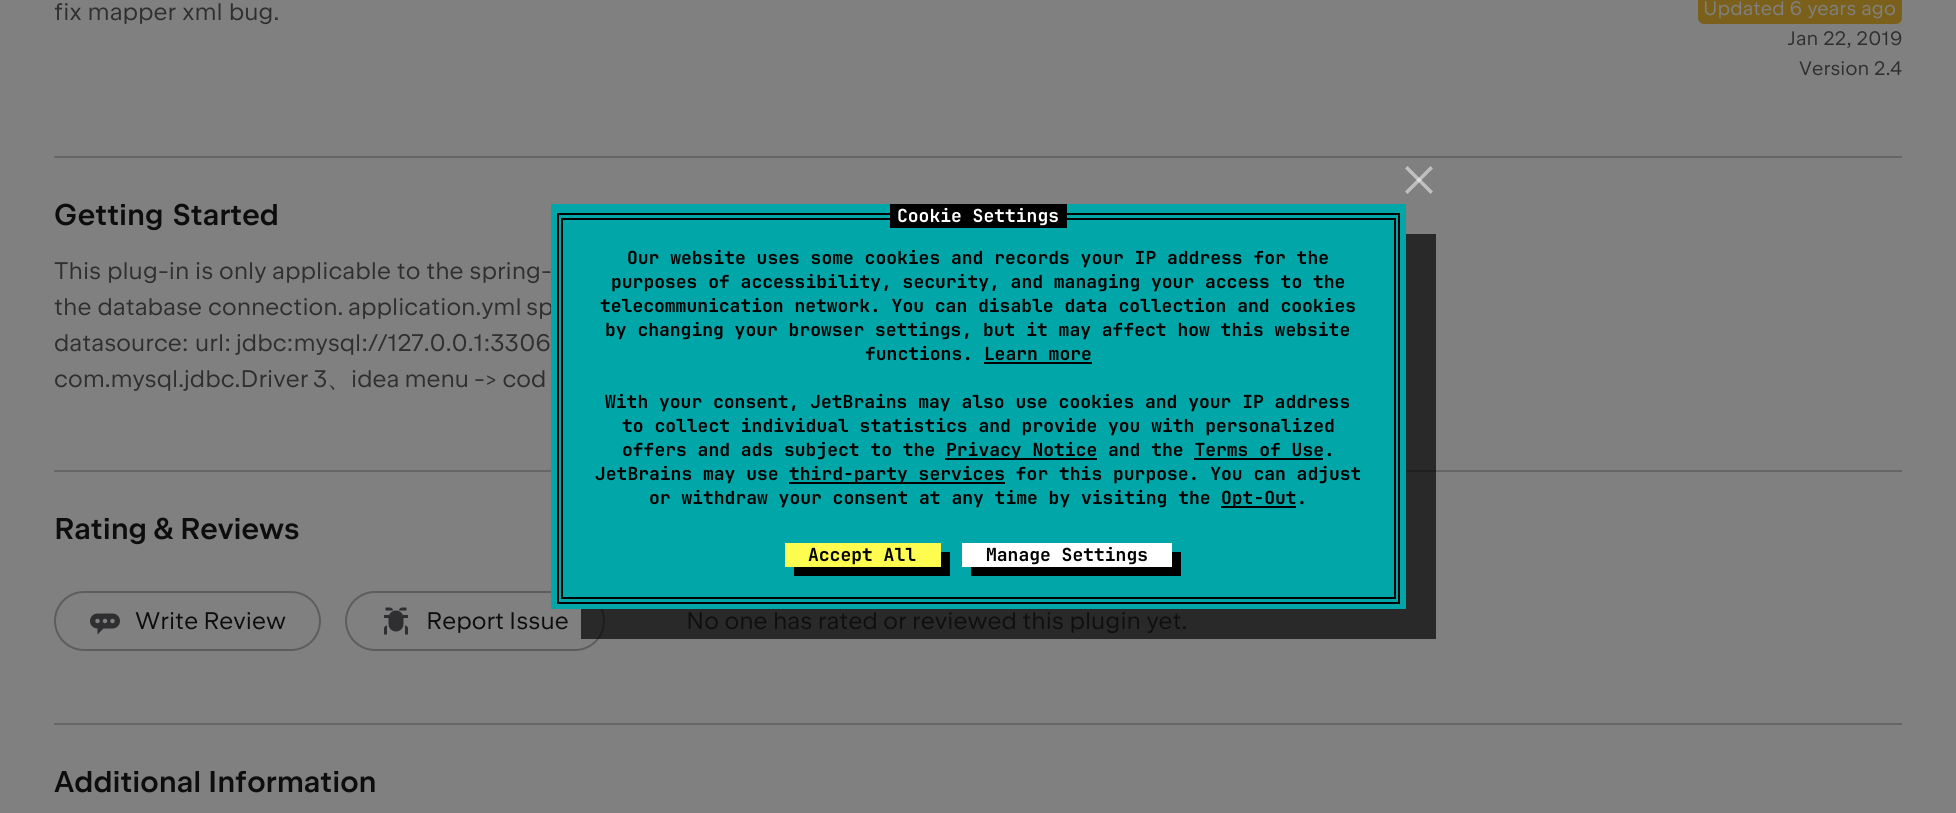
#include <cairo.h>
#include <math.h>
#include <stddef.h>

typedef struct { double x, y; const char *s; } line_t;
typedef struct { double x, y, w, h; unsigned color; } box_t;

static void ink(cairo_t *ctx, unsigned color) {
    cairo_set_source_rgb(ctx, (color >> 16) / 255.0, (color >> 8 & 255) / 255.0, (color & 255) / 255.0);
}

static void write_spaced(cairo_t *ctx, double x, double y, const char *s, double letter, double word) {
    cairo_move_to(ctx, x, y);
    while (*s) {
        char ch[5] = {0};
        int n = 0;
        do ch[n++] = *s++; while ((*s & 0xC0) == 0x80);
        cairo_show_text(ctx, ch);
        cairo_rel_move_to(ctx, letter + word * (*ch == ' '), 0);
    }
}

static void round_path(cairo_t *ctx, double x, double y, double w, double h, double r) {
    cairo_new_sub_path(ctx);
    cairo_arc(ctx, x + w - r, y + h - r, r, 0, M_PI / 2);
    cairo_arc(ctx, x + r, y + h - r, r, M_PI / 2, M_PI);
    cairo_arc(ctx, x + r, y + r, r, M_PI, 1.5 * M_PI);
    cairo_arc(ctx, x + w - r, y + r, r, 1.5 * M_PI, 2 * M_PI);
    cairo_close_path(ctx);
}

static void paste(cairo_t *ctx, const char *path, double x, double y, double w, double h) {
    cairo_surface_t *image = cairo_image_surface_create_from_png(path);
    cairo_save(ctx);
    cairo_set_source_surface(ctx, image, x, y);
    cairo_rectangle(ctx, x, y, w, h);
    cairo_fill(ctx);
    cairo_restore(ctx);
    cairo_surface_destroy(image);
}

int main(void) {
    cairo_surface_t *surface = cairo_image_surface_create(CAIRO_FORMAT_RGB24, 1956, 813);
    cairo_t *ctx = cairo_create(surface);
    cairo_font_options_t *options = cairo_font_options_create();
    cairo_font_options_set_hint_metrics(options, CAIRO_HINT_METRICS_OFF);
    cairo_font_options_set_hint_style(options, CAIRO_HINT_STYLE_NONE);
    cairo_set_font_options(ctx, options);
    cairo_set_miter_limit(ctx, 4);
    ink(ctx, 0x808080);
    cairo_paint(ctx);
    cairo_select_font_face(ctx, "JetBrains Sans", CAIRO_FONT_SLANT_NORMAL, CAIRO_FONT_WEIGHT_NORMAL);
    cairo_set_font_size(ctx, 24);
    ink(ctx, 0x2F2F30);
    write_spaced(ctx, 54, 20, "fix mapper xml bug.", 0.05, 0);
    ink(ctx, 0x7A601A);
    round_path(ctx, 1698, -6, 204, 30, 6);
    cairo_fill(ctx);
    cairo_set_font_size(ctx, 19.5);
    ink(ctx, 0x808080);
    write_spaced(ctx, 1703, 15, "Updated 6 years ago", 0.1, 0);
    ink(ctx, 0x2F2F30);
    write_spaced(ctx, 1788, 45, "Jan 22, 2019", 0.1, 0);
    write_spaced(ctx, 1799, 75, "Version 2.4", 0.1, 0);
    ink(ctx, 0x666666);
    cairo_rectangle(ctx, 54, 156, 1848, 2);
    cairo_fill(ctx);
    cairo_select_font_face(ctx, "JetBrains Sans Medium", CAIRO_FONT_SLANT_NORMAL, CAIRO_FONT_WEIGHT_NORMAL);
    cairo_set_font_size(ctx, 30);
    ink(ctx, 0x0D0D0E);
    write_spaced(ctx, 54, 225, "Getting Started", 0, 2);
    cairo_select_font_face(ctx, "JetBrains Sans", CAIRO_FONT_SLANT_NORMAL, CAIRO_FONT_WEIGHT_NORMAL);
    cairo_set_font_size(ctx, 24);
    ink(ctx, 0x2F2F30);
    write_spaced(ctx, 54, 279, "This plug-in is only applicable to the spring-", 0.05, -0.25);
    {
        static const line_t items[] = {
            {54, 315, "the database connection."},
            {348, 315, "application.yml"},
            {526, 315, "sp"},
            {54, 351, "datasource:"},
        };
        for (size_t i = 0; i < sizeof items / sizeof *items; i++) {
            write_spaced(ctx, items[i].x, items[i].y, items[i].s, 0.05, 0);
        }
    }
    write_spaced(ctx, 195, 351, "url: jdbc:mysql://127.0.0.1:3306", 0.05, -1);
    write_spaced(ctx, 54, 387, "com.mysql.jdbc.Driver 3", 0.05, -1);
    cairo_select_font_face(ctx, "WenQuanYi Zen Hei Medium", CAIRO_FONT_SLANT_NORMAL, CAIRO_FONT_WEIGHT_NORMAL);
    write_spaced(ctx, 327, 387, "、", 0.05, 0);
    cairo_select_font_face(ctx, "JetBrains Sans", CAIRO_FONT_SLANT_NORMAL, CAIRO_FONT_WEIGHT_NORMAL);
    write_spaced(ctx, 351, 387, "idea menu -> cod", 0.05, -1);
    ink(ctx, 0x666666);
    cairo_rectangle(ctx, 54, 470, 1848, 2);
    cairo_fill(ctx);
    cairo_select_font_face(ctx, "JetBrains Sans Medium", CAIRO_FONT_SLANT_NORMAL, CAIRO_FONT_WEIGHT_NORMAL);
    cairo_set_font_size(ctx, 30);
    ink(ctx, 0x0D0D0E);
    write_spaced(ctx, 54, 539, "Rating & Reviews", 0, -1);
    paste(ctx, "media/1.png", 90, 613, 30, 22);
    round_path(ctx, 55, 592, 265, 58, 29);
    ink(ctx, 0x5D5D5E);
    cairo_stroke(ctx);
    cairo_select_font_face(ctx, "JetBrains Sans", CAIRO_FONT_SLANT_NORMAL, CAIRO_FONT_WEIGHT_NORMAL);
    cairo_set_font_size(ctx, 24);
    ink(ctx, 0x0D0D0E);
    write_spaced(ctx, 135, 629, "Write Review", 0.05, -1);
    paste(ctx, "media/2.png", 384, 607, 24, 28);
    round_path(ctx, 346, 592, 258, 58, 29);
    ink(ctx, 0x5D5D5E);
    cairo_stroke(ctx);
    ink(ctx, 0x0D0D0E);
    write_spaced(ctx, 426, 629, "Report Issue", 0.05, -1);
    ink(ctx, 0x2F2F30);
    write_spaced(ctx, 686, 629, "No one has rated or reviewed this plugin yet.", 0.05, -0.5);
    ink(ctx, 0x666666);
    cairo_rectangle(ctx, 54, 723, 1848, 2);
    cairo_fill(ctx);
    cairo_select_font_face(ctx, "JetBrains Sans Medium", CAIRO_FONT_SLANT_NORMAL, CAIRO_FONT_WEIGHT_NORMAL);
    cairo_set_font_size(ctx, 30);
    ink(ctx, 0x0D0D0E);
    cairo_move_to(ctx, 54, 792);
    cairo_show_text(ctx, "Additional Information");
    cairo_set_source_rgba(ctx, 0, 0, 0, 0.68);
    cairo_new_path(ctx);
    cairo_move_to(ctx, 581, 609);
    cairo_line_to(ctx, 581, 639);
    cairo_line_to(ctx, 1436, 639);
    cairo_line_to(ctx, 1436, 234);
    cairo_line_to(ctx, 1406, 234);
    cairo_line_to(ctx, 1406, 609);
    cairo_close_path(ctx);
    cairo_fill(ctx);
    ink(ctx, 0x01A7A8);
    cairo_rectangle(ctx, 551, 204, 855, 405);
    cairo_fill(ctx);
    ink(ctx, 0xBFBFBF);
    cairo_new_path(ctx);
    cairo_move_to(ctx, 1405, 191.5);
    cairo_line_to(ctx, 1430.5, 166);
    cairo_line_to(ctx, 1433, 168.5);
    cairo_line_to(ctx, 1407.5, 194);
    cairo_close_path(ctx);
    cairo_fill(ctx);
    cairo_set_source_rgba(ctx, 1, 1, 1, 0.5);
    cairo_new_path(ctx);
    cairo_move_to(ctx, 1407.5, 166);
    cairo_line_to(ctx, 1433, 191.5);
    cairo_line_to(ctx, 1430.5, 194);
    cairo_line_to(ctx, 1405, 168.5);
    cairo_close_path(ctx);
    cairo_fill(ctx);
    {
        static const box_t items[] = {
            {561, 218, 834, 2, 0x000000},
            {1394, 218, 2, 381, 0x000000},
            {561, 218, 2, 325, 0x000000},
            {557, 213, 843, 2, 0x000000},
            {890, 204, 177, 24, 0x000000},
        };
        for (size_t i = 0; i < sizeof items / sizeof *items; i++) {
            ink(ctx, items[i].color);
            cairo_rectangle(ctx, items[i].x, items[i].y, items[i].w, items[i].h);
            cairo_fill(ctx);
        }
    }
    cairo_select_font_face(ctx, "JetBrains Mono", CAIRO_FONT_SLANT_NORMAL, CAIRO_FONT_WEIGHT_BOLD);
    cairo_set_font_size(ctx, 18);
    ink(ctx, 0xFFFFFF);
    cairo_move_to(ctx, 897, 222);
    cairo_show_text(ctx, "Cookie Settings");
    ink(ctx, 0x000000);
    cairo_rectangle(ctx, 1398, 213, 2, 390);
    cairo_fill(ctx);
    cairo_rectangle(ctx, 557, 213, 2, 329);
    cairo_fill(ctx);
    {
        static const line_t items[] = {
            {627, 264, "Our website uses some cookies and records your IP address for the"},
            {611, 288, "purposes of accessibility, security, and managing your access to the"},
            {600, 312, "telecommunication network. You can disable data collection and cookies"},
            {605, 336, "by changing your browser settings, but it may affect how this website"},
            {865, 360, "functions. Learn more"},
        };
        for (size_t i = 0; i < sizeof items / sizeof *items; i++) {
            cairo_move_to(ctx, items[i].x, items[i].y);
            cairo_show_text(ctx, items[i].s);
        }
    }
    cairo_rectangle(ctx, 984, 362, 108, 2);
    cairo_fill(ctx);
    {
        static const line_t items[] = {
            {605, 408, "With your consent, JetBrains may also use cookies and your IP address"},
            {622, 432, "to collect individual statistics and provide you with personalized"},
            {622, 456, "offers and ads subject to the"},
        };
        for (size_t i = 0; i < sizeof items / sizeof *items; i++) {
            cairo_move_to(ctx, items[i].x, items[i].y);
            cairo_show_text(ctx, items[i].s);
        }
    }
    cairo_rectangle(ctx, 945, 458, 152, 2);
    cairo_fill(ctx);
    cairo_move_to(ctx, 946, 456);
    cairo_show_text(ctx, "Privacy Notice and the Terms of Use.");
    cairo_rectangle(ctx, 1194, 458, 129, 2);
    cairo_fill(ctx);
    cairo_move_to(ctx, 595, 480);
    cairo_show_text(ctx, "JetBrains may use");
    cairo_rectangle(ctx, 789, 482, 216, 2);
    cairo_fill(ctx);
    cairo_move_to(ctx, 789, 480);
    cairo_show_text(ctx, "third-party services for this purpose. You can adjust");
    cairo_move_to(ctx, 649, 504);
    cairo_show_text(ctx, "or withdraw your consent at any time by visiting the");
    cairo_rectangle(ctx, 1221, 506, 75, 2);
    cairo_fill(ctx);
    cairo_move_to(ctx, 1221, 504);
    cairo_show_text(ctx, "Opt-Out.");
    {
        static const box_t items[] = {
            {561, 597, 834, 2, 0x000000},
            {561, 543, 2, 56, 0x000000},
            {557, 602, 843, 2, 0x000000},
            {557, 542, 2, 61, 0x000000},
        };
        for (size_t i = 0; i < sizeof items / sizeof *items; i++) {
            ink(ctx, items[i].color);
            cairo_rectangle(ctx, items[i].x, items[i].y, items[i].w, items[i].h);
            cairo_fill(ctx);
        }
    }
    cairo_new_path(ctx);
    cairo_move_to(ctx, 794, 567);
    cairo_line_to(ctx, 794, 576);
    cairo_line_to(ctx, 950, 576);
    cairo_line_to(ctx, 950, 552);
    cairo_line_to(ctx, 940, 552);
    cairo_line_to(ctx, 940, 567);
    cairo_close_path(ctx);
    cairo_fill(ctx);
    ink(ctx, 0xFEFC4F);
    cairo_rectangle(ctx, 785, 543, 156, 24);
    cairo_fill(ctx);
    ink(ctx, 0x000000);
    cairo_move_to(ctx, 808, 561);
    cairo_show_text(ctx, "Accept All");
    cairo_new_path(ctx);
    cairo_move_to(ctx, 971, 567);
    cairo_line_to(ctx, 971, 576);
    cairo_line_to(ctx, 1181, 576);
    cairo_line_to(ctx, 1181, 552);
    cairo_line_to(ctx, 1172, 552);
    cairo_line_to(ctx, 1172, 567);
    cairo_close_path(ctx);
    cairo_fill(ctx);
    ink(ctx, 0xFFFFFF);
    cairo_rectangle(ctx, 962, 543, 210, 24);
    cairo_fill(ctx);
    ink(ctx, 0x000000);
    cairo_move_to(ctx, 986, 561);
    cairo_show_text(ctx, "Manage Settings");
    cairo_surface_write_to_png(surface, "image.png");
    cairo_font_options_destroy(options);
    cairo_destroy(ctx);
    cairo_surface_destroy(surface);
    return 0;
}
